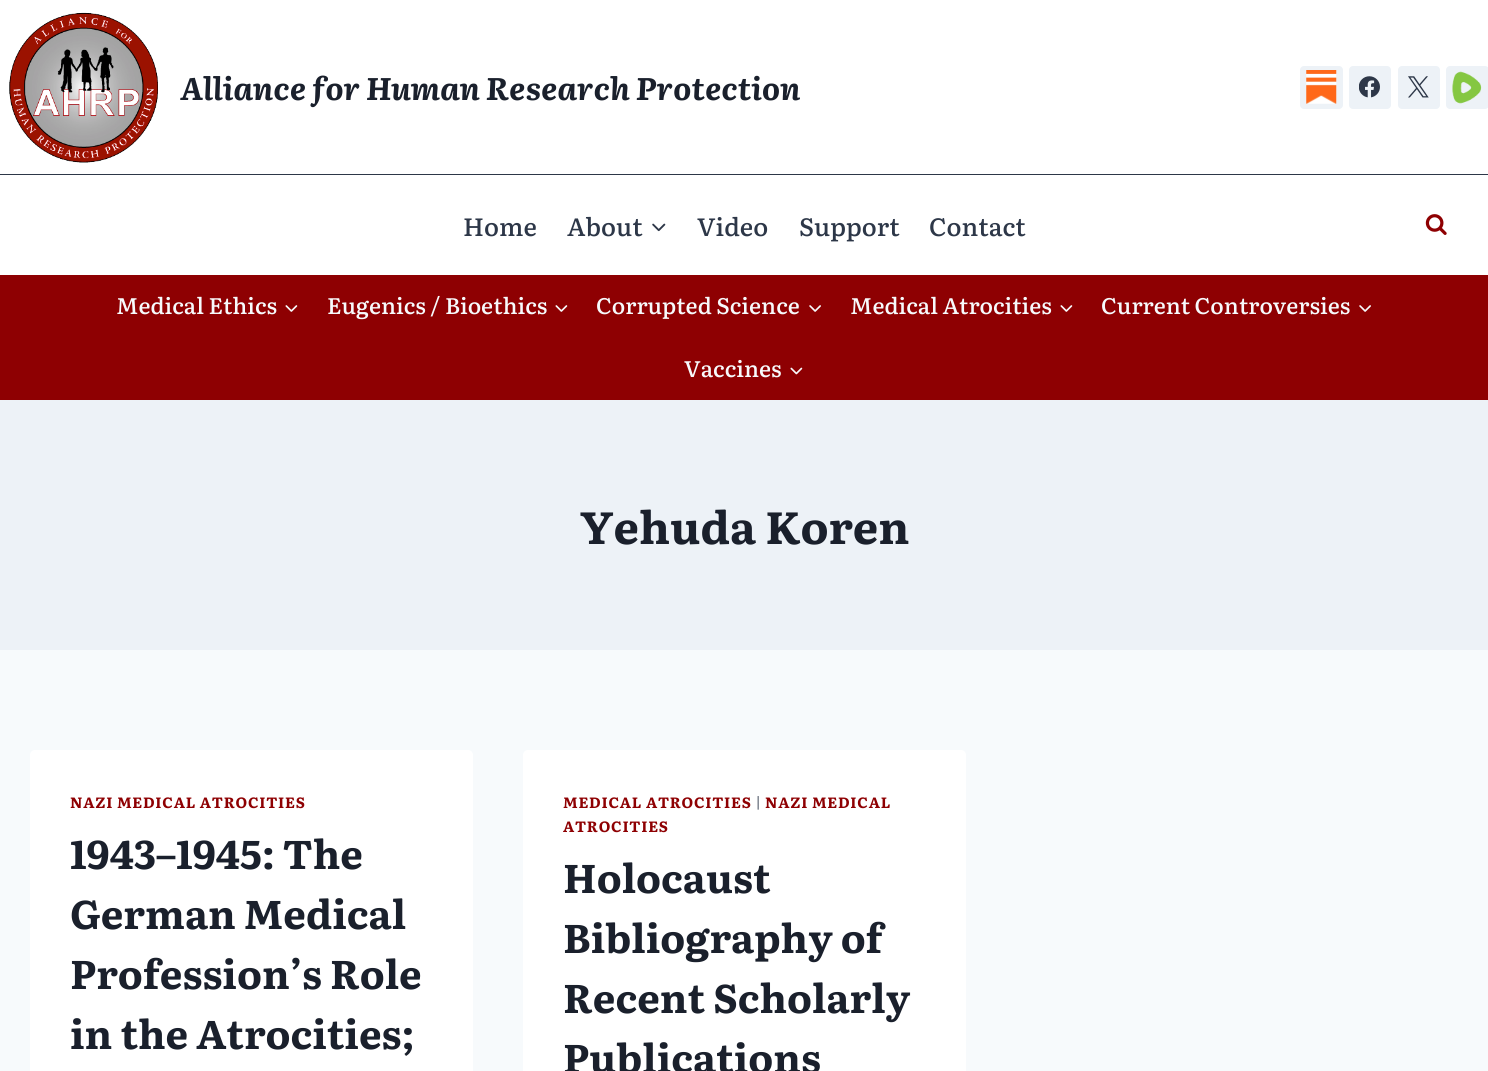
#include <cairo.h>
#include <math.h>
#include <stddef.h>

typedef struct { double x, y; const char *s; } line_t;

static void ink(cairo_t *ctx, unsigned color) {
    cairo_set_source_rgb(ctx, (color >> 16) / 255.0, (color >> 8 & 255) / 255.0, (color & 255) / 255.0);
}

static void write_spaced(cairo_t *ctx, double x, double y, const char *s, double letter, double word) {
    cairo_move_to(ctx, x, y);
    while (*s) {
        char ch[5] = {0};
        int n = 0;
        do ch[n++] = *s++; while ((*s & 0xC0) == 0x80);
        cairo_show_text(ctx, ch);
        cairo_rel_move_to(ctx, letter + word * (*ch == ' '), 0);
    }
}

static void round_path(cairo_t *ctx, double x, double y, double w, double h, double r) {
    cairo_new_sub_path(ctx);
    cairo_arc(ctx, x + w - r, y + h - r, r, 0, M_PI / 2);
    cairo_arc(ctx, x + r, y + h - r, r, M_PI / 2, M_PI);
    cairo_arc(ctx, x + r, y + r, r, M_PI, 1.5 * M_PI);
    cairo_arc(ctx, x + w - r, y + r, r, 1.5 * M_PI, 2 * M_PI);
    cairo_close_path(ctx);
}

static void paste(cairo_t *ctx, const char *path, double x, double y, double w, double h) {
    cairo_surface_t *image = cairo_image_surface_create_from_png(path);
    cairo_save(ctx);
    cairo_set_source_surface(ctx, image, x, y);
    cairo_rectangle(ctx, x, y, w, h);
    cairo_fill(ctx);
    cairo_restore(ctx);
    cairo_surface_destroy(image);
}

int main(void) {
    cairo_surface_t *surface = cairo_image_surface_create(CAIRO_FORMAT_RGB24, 1488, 1071);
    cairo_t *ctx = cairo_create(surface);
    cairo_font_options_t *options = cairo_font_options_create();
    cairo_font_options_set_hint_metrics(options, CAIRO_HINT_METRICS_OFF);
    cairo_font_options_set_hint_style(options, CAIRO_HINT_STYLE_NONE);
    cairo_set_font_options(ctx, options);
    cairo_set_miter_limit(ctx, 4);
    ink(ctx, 0xF7FAFC);
    cairo_paint(ctx);
    ink(ctx, 0xFFFFFF);
    cairo_rectangle(ctx, 0, 0, 1488, 275);
    cairo_fill(ctx);
    paste(ctx, "media/1.png", 9, 12, 149, 151);
    cairo_select_font_face(ctx, "Literata", CAIRO_FONT_SLANT_ITALIC, CAIRO_FONT_WEIGHT_BOLD);
    cairo_set_font_size(ctx, 31.25);
    ink(ctx, 0x1A202C);
    cairo_move_to(ctx, 180, 100);
    cairo_show_text(ctx, "Alliance for Human Research Protection");
    ink(ctx, 0xEDF2F7);
    round_path(ctx, 1300, 66, 43, 43, 4);
    cairo_fill(ctx);
    paste(ctx, "media/2.png", 1306, 70, 31, 34);
    round_path(ctx, 1349, 66, 42, 43, 4);
    cairo_fill(ctx);
    paste(ctx, "media/3.png", 1359, 76, 21, 22);
    round_path(ctx, 1398, 66, 42, 43, 4);
    cairo_fill(ctx);
    paste(ctx, "media/4.png", 1408, 76, 21, 22);
    round_path(ctx, 1446, 66, 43, 43, 4);
    cairo_fill(ctx);
    paste(ctx, "media/5.png", 1452, 71, 30, 33);
    ink(ctx, 0x2D3748);
    cairo_rectangle(ctx, 0, 174, 1488, 1);
    cairo_fill(ctx);
    cairo_select_font_face(ctx, "Literata Medium", CAIRO_FONT_SLANT_NORMAL, CAIRO_FONT_WEIGHT_NORMAL);
    cairo_set_font_size(ctx, 25);
    cairo_move_to(ctx, 463, 236);
    cairo_show_text(ctx, "Home");
    cairo_move_to(ctx, 567, 236);
    cairo_show_text(ctx, "About");
    paste(ctx, "media/6.png", 652, 223, 14, 9);
    {
        static const line_t items[] = {
            {697, 236, "Video"},
            {799, 236, "Support"},
            {929, 236, "Contact"},
        };
        for (size_t i = 0; i < sizeof items / sizeof *items; i++) {
            cairo_move_to(ctx, items[i].x, items[i].y);
            cairo_show_text(ctx, items[i].s);
        }
    }
    paste(ctx, "media/7.png", 1425, 214, 22, 21);
    ink(ctx, 0x8E0002);
    cairo_rectangle(ctx, 0, 275, 1488, 125);
    cairo_fill(ctx);
    cairo_set_font_size(ctx, 22.5);
    ink(ctx, 0xF7FAFC);
    cairo_move_to(ctx, 116, 314);
    cairo_show_text(ctx, "Medical Ethics");
    paste(ctx, "media/8.png", 285, 305, 13, 7);
    cairo_move_to(ctx, 327, 314);
    cairo_show_text(ctx, "Eugenics / Bioethics");
    paste(ctx, "media/8.png", 555, 305, 13, 7);
    cairo_move_to(ctx, 596, 314);
    cairo_show_text(ctx, "Corrupted Science");
    paste(ctx, "media/9.png", 809, 305, 12, 7);
    cairo_move_to(ctx, 850, 314);
    cairo_show_text(ctx, "Medical Atrocities");
    paste(ctx, "media/8.png", 1060, 305, 13, 7);
    cairo_move_to(ctx, 1101, 314);
    cairo_show_text(ctx, "Current Controversies");
    paste(ctx, "media/9.png", 1359, 305, 12, 7);
    cairo_move_to(ctx, 684, 377);
    cairo_show_text(ctx, "Vaccines");
    paste(ctx, "media/10.png", 790, 367, 13, 8);
    ink(ctx, 0xEDF2F7);
    cairo_rectangle(ctx, 0, 400, 1488, 250);
    cairo_fill(ctx);
    cairo_select_font_face(ctx, "Literata", CAIRO_FONT_SLANT_NORMAL, CAIRO_FONT_WEIGHT_BOLD);
    cairo_set_font_size(ctx, 45);
    ink(ctx, 0x1A202C);
    cairo_move_to(ctx, 580, 544);
    cairo_show_text(ctx, "Yehuda Koren");
    ink(ctx, 0xFFFFFF);
    round_path(ctx, 30, 750, 443, 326, 5);
    cairo_fill(ctx);
    cairo_set_font_size(ctx, 14.9);
    ink(ctx, 0x8E0002);
    write_spaced(ctx, 70, 808, "NAZI MEDICAL ATROCITIES", 0.75, 0);
    cairo_set_font_size(ctx, 40);
    ink(ctx, 0x1A202C);
    {
        static const line_t items[] = {
            {70, 869, "1943–1945: The"},
            {70, 929, "German Medical"},
            {70, 989, "Profession’s Role"},
            {70, 1049, "in the Atrocities;"},
        };
        for (size_t i = 0; i < sizeof items / sizeof *items; i++) {
            cairo_move_to(ctx, items[i].x, items[i].y);
            cairo_show_text(ctx, items[i].s);
        }
    }
    ink(ctx, 0xFFFFFF);
    round_path(ctx, 523, 750, 443, 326, 5);
    cairo_fill(ctx);
    cairo_set_font_size(ctx, 14.9);
    ink(ctx, 0x8E0002);
    write_spaced(ctx, 563, 808, "MEDICAL ATROCITIES", 0.75, 0);
    cairo_select_font_face(ctx, "Literata", CAIRO_FONT_SLANT_NORMAL, CAIRO_FONT_WEIGHT_NORMAL);
    ink(ctx, 0x2D3748);
    write_spaced(ctx, 755, 808, "|", 0.75, 0);
    cairo_select_font_face(ctx, "Literata", CAIRO_FONT_SLANT_NORMAL, CAIRO_FONT_WEIGHT_BOLD);
    ink(ctx, 0x8E0002);
    write_spaced(ctx, 765, 808, "NAZI MEDICAL", 0.75, 0);
    write_spaced(ctx, 563, 832, "ATROCITIES", 0.75, 0);
    cairo_set_font_size(ctx, 40);
    ink(ctx, 0x1A202C);
    {
        static const line_t items[] = {
            {563, 893, "Holocaust"},
            {563, 953, "Bibliography of"},
            {563, 1013, "Recent Scholarly"},
            {563, 1073, "Publications"},
        };
        for (size_t i = 0; i < sizeof items / sizeof *items; i++) {
            cairo_move_to(ctx, items[i].x, items[i].y);
            cairo_show_text(ctx, items[i].s);
        }
    }
    cairo_surface_write_to_png(surface, "image.png");
    cairo_font_options_destroy(options);
    cairo_destroy(ctx);
    cairo_surface_destroy(surface);
    return 0;
}
